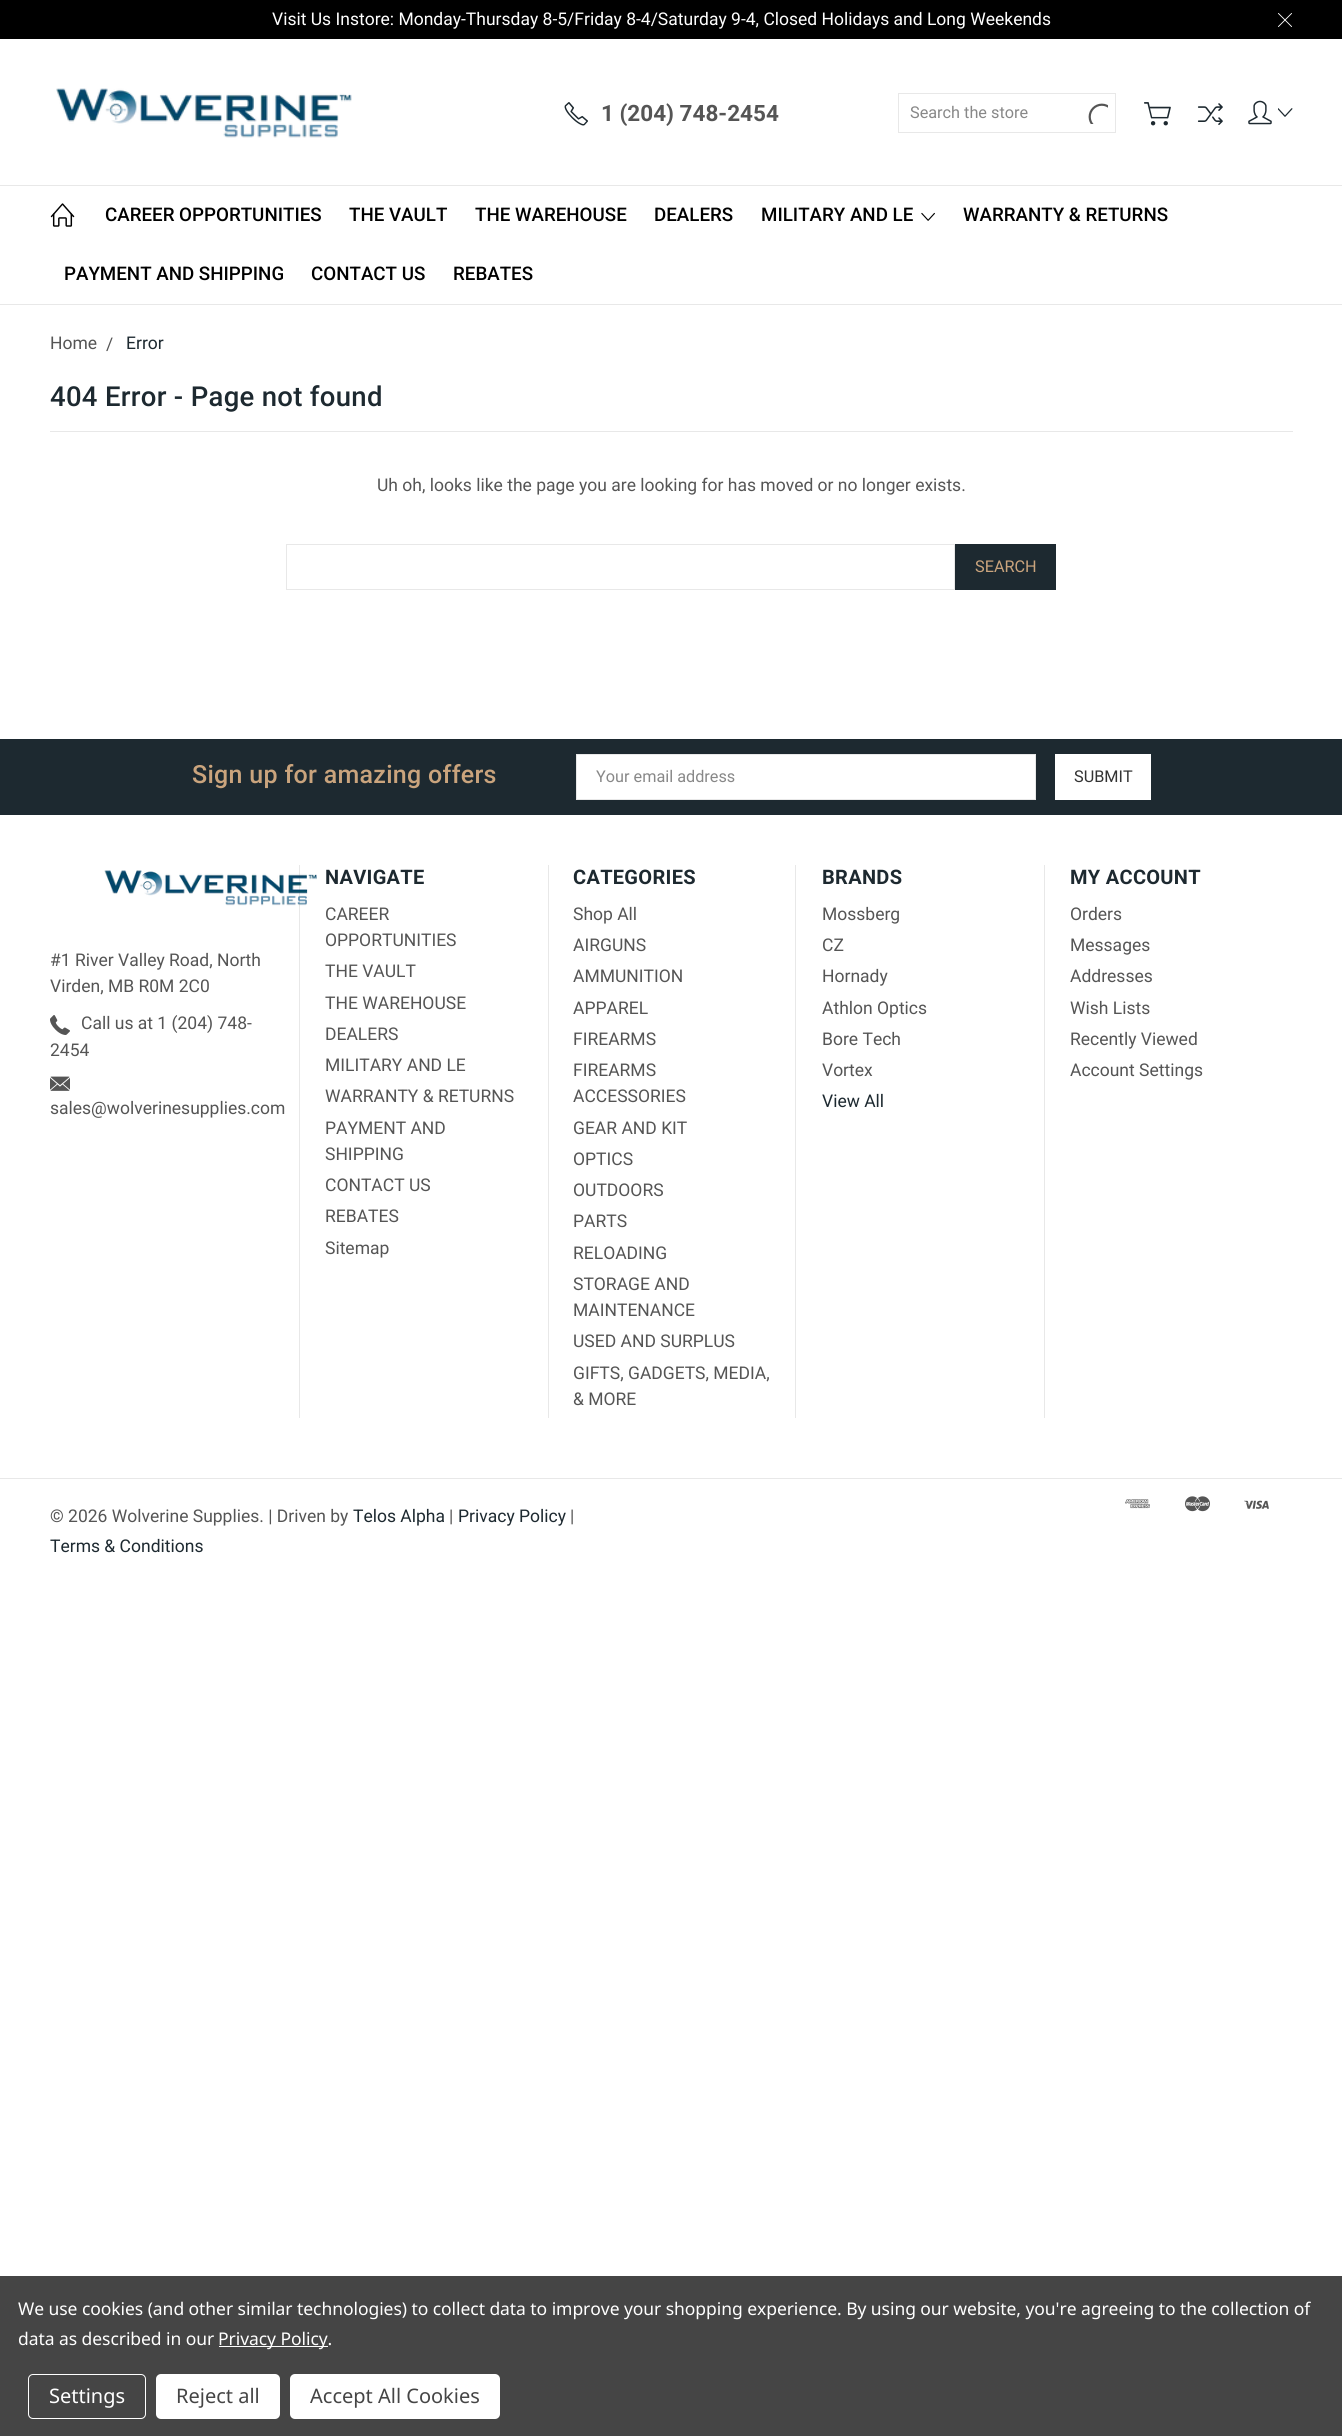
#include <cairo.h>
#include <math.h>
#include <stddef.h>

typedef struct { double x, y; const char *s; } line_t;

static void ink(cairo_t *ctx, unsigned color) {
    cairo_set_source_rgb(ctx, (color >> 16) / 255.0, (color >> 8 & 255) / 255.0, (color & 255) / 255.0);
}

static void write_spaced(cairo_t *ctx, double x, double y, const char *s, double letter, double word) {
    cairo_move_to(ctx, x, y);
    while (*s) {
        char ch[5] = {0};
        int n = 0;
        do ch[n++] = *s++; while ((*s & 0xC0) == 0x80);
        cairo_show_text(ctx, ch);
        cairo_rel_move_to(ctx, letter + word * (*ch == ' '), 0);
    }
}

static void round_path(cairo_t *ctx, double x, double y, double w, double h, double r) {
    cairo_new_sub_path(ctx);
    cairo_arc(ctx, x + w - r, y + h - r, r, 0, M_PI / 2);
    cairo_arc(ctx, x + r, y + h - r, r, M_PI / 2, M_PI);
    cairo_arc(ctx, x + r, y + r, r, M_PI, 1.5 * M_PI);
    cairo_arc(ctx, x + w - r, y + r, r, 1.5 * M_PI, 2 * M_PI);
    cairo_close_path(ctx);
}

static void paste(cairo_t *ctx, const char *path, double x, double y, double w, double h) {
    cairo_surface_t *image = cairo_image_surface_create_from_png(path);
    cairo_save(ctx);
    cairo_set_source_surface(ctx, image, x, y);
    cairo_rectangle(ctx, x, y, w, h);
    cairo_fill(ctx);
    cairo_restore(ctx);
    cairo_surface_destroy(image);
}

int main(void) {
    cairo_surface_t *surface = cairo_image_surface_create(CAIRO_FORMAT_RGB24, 1342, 2436);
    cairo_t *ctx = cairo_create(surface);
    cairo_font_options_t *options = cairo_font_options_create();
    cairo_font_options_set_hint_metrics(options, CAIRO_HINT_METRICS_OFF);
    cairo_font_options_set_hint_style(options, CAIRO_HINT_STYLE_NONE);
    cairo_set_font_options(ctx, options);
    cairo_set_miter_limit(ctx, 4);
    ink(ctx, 0xFFFFFF);
    cairo_paint(ctx);
    ink(ctx, 0x000000);
    cairo_rectangle(ctx, 0, 0, 1342, 39);
    cairo_fill(ctx);
    cairo_select_font_face(ctx, "Roboto", CAIRO_FONT_SLANT_NORMAL, CAIRO_FONT_WEIGHT_NORMAL);
    cairo_set_font_size(ctx, 17.5);
    ink(ctx, 0xFFFFFF);
    cairo_move_to(ctx, 272, 25);
    cairo_show_text(ctx, "Visit Us Instore: Monday-Thursday 8-5/Friday 8-4/Saturday 9-4, Closed Holidays and Long Weekends");
    paste(ctx, "media/1.png", 1278, 13, 14, 14);
    paste(ctx, "media/2.png", 56, 88, 296, 50);
    paste(ctx, "media/3.png", 564, 102, 24, 24);
    cairo_select_font_face(ctx, "Roboto", CAIRO_FONT_SLANT_NORMAL, CAIRO_FONT_WEIGHT_BOLD);
    cairo_set_font_size(ctx, 22.5);
    ink(ctx, 0x555555);
    cairo_move_to(ctx, 601, 121);
    cairo_show_text(ctx, "1 (204) 748-2454");
    cairo_rectangle(ctx, 898.5, 93.5, 217, 39);
    ink(ctx, 0xE8E8E8);
    cairo_set_line_width(ctx, 1);
    cairo_stroke(ctx);
    cairo_select_font_face(ctx, "Roboto", CAIRO_FONT_SLANT_NORMAL, CAIRO_FONT_WEIGHT_NORMAL);
    cairo_set_font_size(ctx, 16.25);
    ink(ctx, 0x888888);
    cairo_move_to(ctx, 910, 118);
    cairo_show_text(ctx, "Search the store");
    paste(ctx, "media/4.png", 1088, 103, 20, 21);
    paste(ctx, "media/5.png", 1144, 102, 27, 24);
    paste(ctx, "media/6.png", 1197, 103, 26, 22);
    paste(ctx, "media/7.png", 1248, 100, 24, 25);
    paste(ctx, "media/8.png", 1278, 108, 15, 9);
    ink(ctx, 0xE8E8E8);
    cairo_rectangle(ctx, 0, 185, 1342, 1);
    cairo_fill(ctx);
    cairo_rectangle(ctx, 0, 304, 1342, 1);
    cairo_fill(ctx);
    paste(ctx, "media/9.png", 50, 203, 25, 24);
    cairo_select_font_face(ctx, "Roboto Medium", CAIRO_FONT_SLANT_NORMAL, CAIRO_FONT_WEIGHT_NORMAL);
    cairo_set_font_size(ctx, 18.75);
    ink(ctx, 0x000000);
    {
        static const line_t items[] = {
            {105, 221, "CAREER OPPORTUNITIES"},
            {349, 221, "THE VAULT"},
            {475, 221, "THE WAREHOUSE"},
            {654, 221, "DEALERS"},
            {761, 221, "MILITARY AND LE"},
        };
        for (size_t i = 0; i < sizeof items / sizeof *items; i++) {
            cairo_move_to(ctx, items[i].x, items[i].y);
            cairo_show_text(ctx, items[i].s);
        }
    }
    paste(ctx, "media/10.png", 921, 212, 14, 9);
    {
        static const line_t items[] = {
            {963, 221, "WARRANTY & RETURNS"},
            {64, 280, "PAYMENT AND SHIPPING"},
            {311, 280, "CONTACT US"},
            {453, 280, "REBATES"},
        };
        for (size_t i = 0; i < sizeof items / sizeof *items; i++) {
            cairo_move_to(ctx, items[i].x, items[i].y);
            cairo_show_text(ctx, items[i].s);
        }
    }
    cairo_select_font_face(ctx, "Roboto", CAIRO_FONT_SLANT_NORMAL, CAIRO_FONT_WEIGHT_NORMAL);
    cairo_set_font_size(ctx, 17.5);
    ink(ctx, 0x555555);
    cairo_move_to(ctx, 50, 349);
    cairo_show_text(ctx, "Home");
    cairo_move_to(ctx, 106, 350);
    cairo_show_text(ctx, "/");
    ink(ctx, 0x1D2930);
    cairo_move_to(ctx, 126, 349);
    cairo_show_text(ctx, "Error");
    ink(ctx, 0xE8E8E8);
    cairo_rectangle(ctx, 50, 431, 1243, 1);
    cairo_fill(ctx);
    cairo_select_font_face(ctx, "Roboto Medium", CAIRO_FONT_SLANT_NORMAL, CAIRO_FONT_WEIGHT_NORMAL);
    cairo_set_font_size(ctx, 27.5);
    ink(ctx, 0x1D2930);
    write_spaced(ctx, 50, 406, "404 Error - Page not found", 0.3, 0);
    cairo_select_font_face(ctx, "Roboto", CAIRO_FONT_SLANT_NORMAL, CAIRO_FONT_WEIGHT_NORMAL);
    cairo_set_font_size(ctx, 17.5);
    ink(ctx, 0x555555);
    cairo_move_to(ctx, 377, 491);
    cairo_show_text(ctx, "Uh oh, looks like the page you are looking for has moved or no longer exists.");
    cairo_rectangle(ctx, 286.5, 544.5, 668, 45);
    ink(ctx, 0xE8E8E8);
    cairo_stroke(ctx);
    ink(ctx, 0x1D2930);
    cairo_rectangle(ctx, 955, 544, 101, 46);
    cairo_fill(ctx);
    cairo_set_font_size(ctx, 16.25);
    ink(ctx, 0xCAA47D);
    cairo_move_to(ctx, 975, 572);
    cairo_show_text(ctx, "SEARCH");
    ink(ctx, 0x1D2930);
    cairo_rectangle(ctx, 0, 739, 1342, 76);
    cairo_fill(ctx);
    cairo_select_font_face(ctx, "Roboto Medium", CAIRO_FONT_SLANT_NORMAL, CAIRO_FONT_WEIGHT_NORMAL);
    cairo_set_font_size(ctx, 25);
    ink(ctx, 0xCAA47D);
    write_spaced(ctx, 192, 783, "Sign up for amazing offers", 0.3, 0);
    ink(ctx, 0xFFFFFF);
    cairo_rectangle(ctx, 576.5, 754.5, 459, 45);
    cairo_fill_preserve(ctx);
    ink(ctx, 0xE8E8E8);
    cairo_stroke(ctx);
    cairo_select_font_face(ctx, "Roboto", CAIRO_FONT_SLANT_NORMAL, CAIRO_FONT_WEIGHT_NORMAL);
    cairo_set_font_size(ctx, 16.25);
    ink(ctx, 0x888888);
    cairo_move_to(ctx, 596, 782);
    cairo_show_text(ctx, "Your email address");
    ink(ctx, 0xFFFFFF);
    cairo_rectangle(ctx, 1055, 754, 96, 46);
    cairo_fill(ctx);
    ink(ctx, 0x333333);
    cairo_move_to(ctx, 1074, 782);
    cairo_show_text(ctx, "SUBMIT");
    ink(ctx, 0xE8E8E8);
    cairo_rectangle(ctx, 299, 865, 1, 553);
    cairo_fill(ctx);
    paste(ctx, "media/11.png", 104, 870, 213, 36);
    cairo_set_font_size(ctx, 17.5);
    ink(ctx, 0x555555);
    cairo_move_to(ctx, 50, 966);
    cairo_show_text(ctx, "#1 River Valley Road, North");
    cairo_move_to(ctx, 50, 992);
    cairo_show_text(ctx, "Virden, MB R0M 2C0");
    paste(ctx, "media/12.png", 50, 1015, 20, 20);
    cairo_move_to(ctx, 81, 1029);
    cairo_show_text(ctx, "Call us at 1 (204) 748-");
    cairo_move_to(ctx, 50, 1056);
    cairo_show_text(ctx, "2454");
    paste(ctx, "media/13.png", 50, 1076, 20, 15);
    cairo_move_to(ctx, 50, 1114);
    cairo_show_text(ctx, "sales@wolverinesupplies.com");
    cairo_select_font_face(ctx, "Roboto", CAIRO_FONT_SLANT_NORMAL, CAIRO_FONT_WEIGHT_BOLD);
    cairo_set_font_size(ctx, 20);
    ink(ctx, 0x1D2930);
    write_spaced(ctx, 325, 884, "NAVIGATE", 0.3, 0);
    cairo_select_font_face(ctx, "Roboto", CAIRO_FONT_SLANT_NORMAL, CAIRO_FONT_WEIGHT_NORMAL);
    cairo_set_font_size(ctx, 17.5);
    ink(ctx, 0x555555);
    {
        static const line_t items[] = {
            {325, 920, "CAREER"},
            {325, 946, "OPPORTUNITIES"},
            {325, 977, "THE VAULT"},
            {325, 1009, "THE WAREHOUSE"},
            {325, 1040, "DEALERS"},
            {325, 1071, "MILITARY AND LE"},
            {325, 1102, "WARRANTY & RETURNS"},
            {325, 1134, "PAYMENT AND"},
            {325, 1160, "SHIPPING"},
            {325, 1191, "CONTACT US"},
            {325, 1222, "REBATES"},
            {325, 1254, "Sitemap"},
        };
        for (size_t i = 0; i < sizeof items / sizeof *items; i++) {
            cairo_move_to(ctx, items[i].x, items[i].y);
            cairo_show_text(ctx, items[i].s);
        }
    }
    ink(ctx, 0xE8E8E8);
    cairo_rectangle(ctx, 548, 865, 1, 553);
    cairo_fill(ctx);
    cairo_select_font_face(ctx, "Roboto", CAIRO_FONT_SLANT_NORMAL, CAIRO_FONT_WEIGHT_BOLD);
    cairo_set_font_size(ctx, 20);
    ink(ctx, 0x1D2930);
    write_spaced(ctx, 573, 884, "CATEGORIES", 0.3, 0);
    cairo_select_font_face(ctx, "Roboto", CAIRO_FONT_SLANT_NORMAL, CAIRO_FONT_WEIGHT_NORMAL);
    cairo_set_font_size(ctx, 17.5);
    ink(ctx, 0x555555);
    {
        static const line_t items[] = {
            {573, 920, "Shop All"},
            {573, 951, "AIRGUNS"},
            {573, 982, "AMMUNITION"},
            {573, 1014, "APPAREL"},
            {573, 1045, "FIREARMS"},
            {573, 1076, "FIREARMS"},
            {573, 1102, "ACCESSORIES"},
            {573, 1134, "GEAR AND KIT"},
            {573, 1165, "OPTICS"},
            {573, 1196, "OUTDOORS"},
            {573, 1227, "PARTS"},
            {573, 1259, "RELOADING"},
            {573, 1290, "STORAGE AND"},
            {573, 1316, "MAINTENANCE"},
            {573, 1347, "USED AND SURPLUS"},
            {573, 1379, "GIFTS, GADGETS, MEDIA,"},
            {573, 1405, "& MORE"},
        };
        for (size_t i = 0; i < sizeof items / sizeof *items; i++) {
            cairo_move_to(ctx, items[i].x, items[i].y);
            cairo_show_text(ctx, items[i].s);
        }
    }
    ink(ctx, 0xE8E8E8);
    cairo_rectangle(ctx, 795, 865, 1, 553);
    cairo_fill(ctx);
    cairo_select_font_face(ctx, "Roboto", CAIRO_FONT_SLANT_NORMAL, CAIRO_FONT_WEIGHT_BOLD);
    cairo_set_font_size(ctx, 20);
    ink(ctx, 0x1D2930);
    write_spaced(ctx, 822, 884, "BRANDS", 0.3, 0);
    cairo_select_font_face(ctx, "Roboto", CAIRO_FONT_SLANT_NORMAL, CAIRO_FONT_WEIGHT_NORMAL);
    cairo_set_font_size(ctx, 17.5);
    ink(ctx, 0x555555);
    {
        static const line_t items[] = {
            {822, 920, "Mossberg"},
            {822, 951, "CZ"},
            {822, 982, "Hornady"},
            {822, 1014, "Athlon Optics"},
            {822, 1045, "Bore Tech"},
            {822, 1076, "Vortex"},
        };
        for (size_t i = 0; i < sizeof items / sizeof *items; i++) {
            cairo_move_to(ctx, items[i].x, items[i].y);
            cairo_show_text(ctx, items[i].s);
        }
    }
    ink(ctx, 0x1D2930);
    cairo_move_to(ctx, 822, 1107);
    cairo_show_text(ctx, "View All");
    ink(ctx, 0xE8E8E8);
    cairo_rectangle(ctx, 1044, 865, 1, 553);
    cairo_fill(ctx);
    cairo_select_font_face(ctx, "Roboto", CAIRO_FONT_SLANT_NORMAL, CAIRO_FONT_WEIGHT_BOLD);
    cairo_set_font_size(ctx, 20);
    ink(ctx, 0x1D2930);
    write_spaced(ctx, 1070, 884, "MY ACCOUNT", 0.3, 0);
    cairo_select_font_face(ctx, "Roboto", CAIRO_FONT_SLANT_NORMAL, CAIRO_FONT_WEIGHT_NORMAL);
    cairo_set_font_size(ctx, 17.5);
    ink(ctx, 0x555555);
    {
        static const line_t items[] = {
            {1070, 920, "Orders"},
            {1070, 951, "Messages"},
            {1070, 982, "Addresses"},
            {1070, 1014, "Wish Lists"},
            {1070, 1045, "Recently Viewed"},
            {1070, 1076, "Account Settings"},
        };
        for (size_t i = 0; i < sizeof items / sizeof *items; i++) {
            cairo_move_to(ctx, items[i].x, items[i].y);
            cairo_show_text(ctx, items[i].s);
        }
    }
    ink(ctx, 0xE8E8E8);
    cairo_rectangle(ctx, 0, 1478, 1342, 1);
    cairo_fill(ctx);
    paste(ctx, "media/14.png", 1125, 1499, 25, 10);
    paste(ctx, "media/15.png", 1185, 1496, 25, 16);
    paste(ctx, "media/16.png", 1244, 1500, 25, 9);
    ink(ctx, 0x555555);
    cairo_move_to(ctx, 50, 1522);
    cairo_show_text(ctx, "© 2026 Wolverine Supplies. | Driven by");
    ink(ctx, 0x1D2930);
    cairo_move_to(ctx, 353, 1522);
    cairo_show_text(ctx, "Telos Alpha");
    ink(ctx, 0x555555);
    cairo_move_to(ctx, 449, 1522);
    cairo_show_text(ctx, "|");
    ink(ctx, 0x1D2930);
    cairo_move_to(ctx, 458, 1522);
    cairo_show_text(ctx, "Privacy Policy");
    ink(ctx, 0x555555);
    cairo_move_to(ctx, 570, 1522);
    cairo_show_text(ctx, "|");
    ink(ctx, 0x1D2930);
    cairo_move_to(ctx, 50, 1552);
    cairo_show_text(ctx, "Terms & Conditions");
    ink(ctx, 0x454545);
    cairo_rectangle(ctx, 0, 2276, 1342, 160);
    cairo_fill(ctx);
    cairo_select_font_face(ctx, "Noto Sans", CAIRO_FONT_SLANT_NORMAL, CAIRO_FONT_WEIGHT_NORMAL);
    ink(ctx, 0xFFFFFF);
    write_spaced(ctx, 18, 2315, "We use cookies (and other similar technologies) to collect data to improve your shopping experience. By using our website, you're agreeing to the collection of", -0.06, 0);
    write_spaced(ctx, 18, 2345, "data as described in our", -0.06, 0);
    cairo_rectangle(ctx, 219, 2346, 109, 1);
    cairo_fill(ctx);
    write_spaced(ctx, 218, 2345, "Privacy Policy.", -0.06, 0);
    round_path(ctx, 28.5, 2374.5, 117, 44, 4.5);
    cairo_stroke(ctx);
    cairo_set_font_size(ctx, 20);
    cairo_move_to(ctx, 49, 2403);
    cairo_show_text(ctx, "Settings");
    round_path(ctx, 156, 2374, 124, 45, 5);
    cairo_fill(ctx);
    ink(ctx, 0x454545);
    cairo_move_to(ctx, 176, 2403);
    cairo_show_text(ctx, "Reject all");
    ink(ctx, 0xFFFFFF);
    round_path(ctx, 290, 2374, 210, 45, 5);
    cairo_fill(ctx);
    ink(ctx, 0x454545);
    cairo_move_to(ctx, 310, 2403);
    cairo_show_text(ctx, "Accept All Cookies");
    cairo_surface_write_to_png(surface, "image.png");
    cairo_font_options_destroy(options);
    cairo_destroy(ctx);
    cairo_surface_destroy(surface);
    return 0;
}
